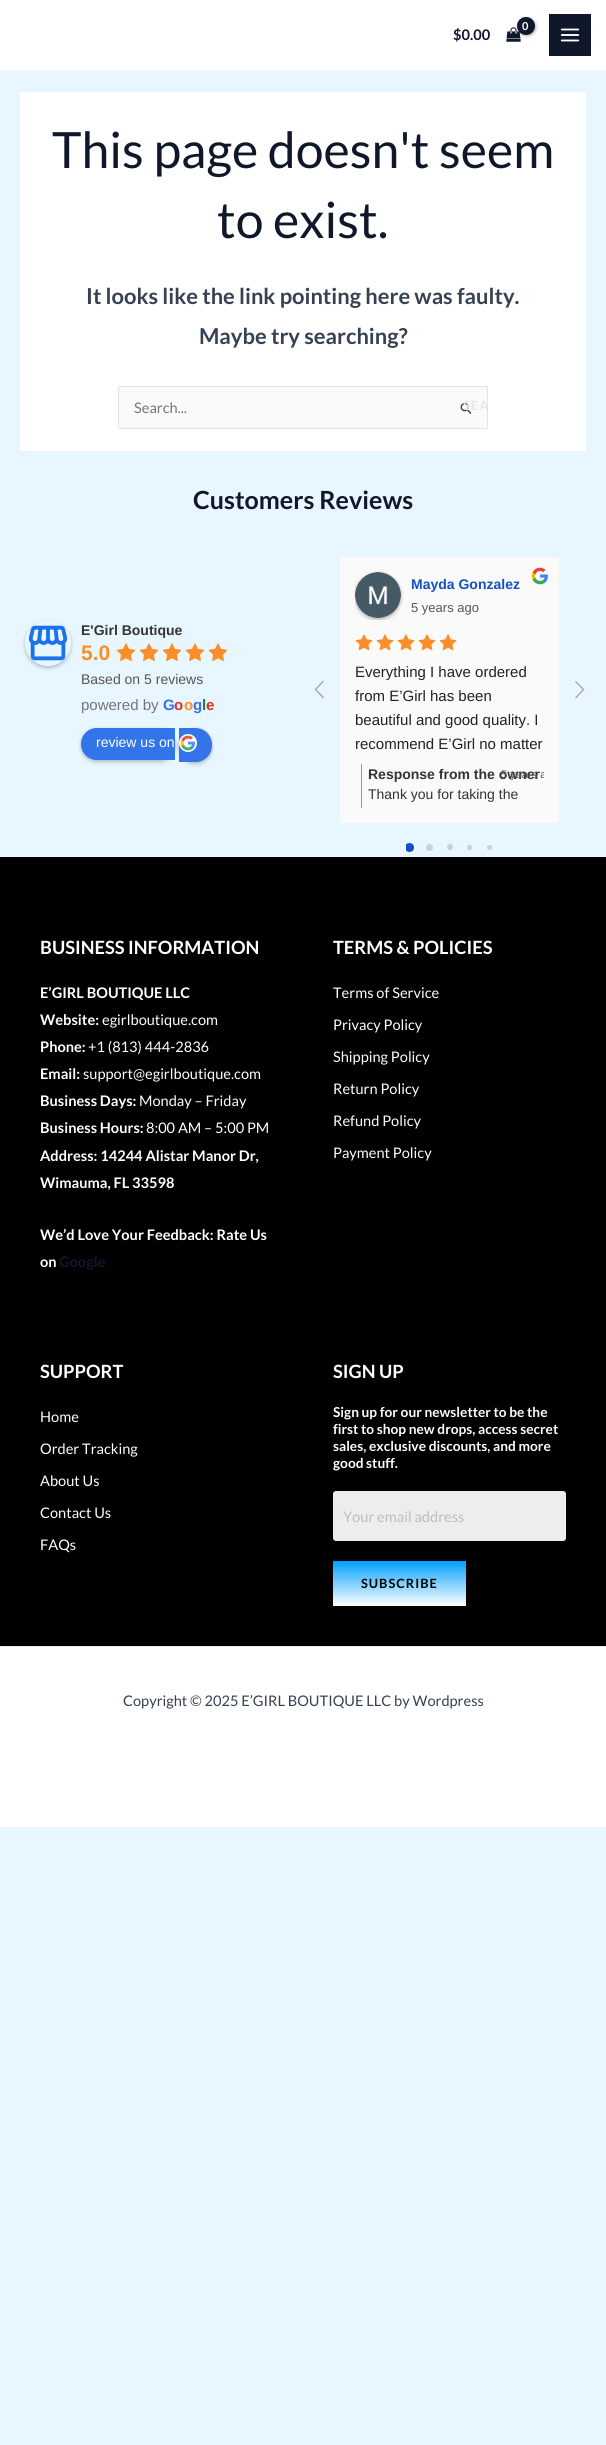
#include <cairo.h>
#include <math.h>
#include <stddef.h>

typedef struct { double x, y; const char *s; } line_t;

static void ink(cairo_t *ctx, unsigned color) {
    cairo_set_source_rgb(ctx, (color >> 16) / 255.0, (color >> 8 & 255) / 255.0, (color & 255) / 255.0);
}

static void write_spaced(cairo_t *ctx, double x, double y, const char *s, double letter, double word) {
    cairo_move_to(ctx, x, y);
    while (*s) {
        char ch[5] = {0};
        int n = 0;
        do ch[n++] = *s++; while ((*s & 0xC0) == 0x80);
        cairo_show_text(ctx, ch);
        cairo_rel_move_to(ctx, letter + word * (*ch == ' '), 0);
    }
}

static void round_path(cairo_t *ctx, double x, double y, double w, double h, double r) {
    cairo_new_sub_path(ctx);
    cairo_arc(ctx, x + w - r, y + h - r, r, 0, M_PI / 2);
    cairo_arc(ctx, x + r, y + h - r, r, M_PI / 2, M_PI);
    cairo_arc(ctx, x + r, y + r, r, M_PI, 1.5 * M_PI);
    cairo_arc(ctx, x + w - r, y + r, r, 1.5 * M_PI, 2 * M_PI);
    cairo_close_path(ctx);
}

static void blur_box(cairo_t *ctx, double x, double y, double w, double h, double r, double blur, double alpha) {
    cairo_push_group_with_content(ctx, CAIRO_CONTENT_ALPHA);
    cairo_set_operator(ctx, CAIRO_OPERATOR_SOURCE);
    for (int i = 15; i >= -15 && fmin(w, h) + blur * i / 3 > 0; i -= 2) {
        double e = blur * i / 6;
        cairo_set_source_rgba(ctx, 0, 0, 0, alpha * erfc((i - 1) / 8.5) / 2);
        round_path(ctx, x - e, y - e, w + 2 * e, h + 2 * e, fmax(0, fmin(r + e + blur * .6, fmin(w, h) / 2 + e)));
        cairo_fill(ctx);
    }
    cairo_pattern_t *soft = cairo_pop_group(ctx);
    cairo_mask(ctx, soft);
    cairo_pattern_destroy(soft);
}

static void paste(cairo_t *ctx, const char *path, double x, double y, double w, double h) {
    cairo_surface_t *image = cairo_image_surface_create_from_png(path);
    cairo_save(ctx);
    cairo_set_source_surface(ctx, image, x, y);
    cairo_rectangle(ctx, x, y, w, h);
    cairo_fill(ctx);
    cairo_restore(ctx);
    cairo_surface_destroy(image);
}

int main(void) {
    cairo_surface_t *surface = cairo_image_surface_create(CAIRO_FORMAT_RGB24, 606, 2445);
    cairo_t *ctx = cairo_create(surface);
    cairo_font_options_t *options = cairo_font_options_create();
    cairo_font_options_set_hint_metrics(options, CAIRO_HINT_METRICS_OFF);
    cairo_font_options_set_hint_style(options, CAIRO_HINT_STYLE_NONE);
    cairo_set_font_options(ctx, options);
    cairo_set_miter_limit(ctx, 4);
    cairo_pattern_t *gradient;
    ink(ctx, 0xE7F6FF);
    cairo_paint(ctx);
    ink(ctx, 0xFFFFFF);
    cairo_rectangle(ctx, 0, 0, 606, 70);
    cairo_fill(ctx);
    paste(ctx, "media/1.png", 506, 27, 15, 15);
    ink(ctx, 0x000000);
    blur_box(ctx, 518, 18, 18, 18, 9, 1.5, 0.3);
    ink(ctx, 0x0F172A);
    cairo_arc(ctx, 526, 26, 9, 0, 2 * M_PI);
    cairo_fill(ctx);
    cairo_select_font_face(ctx, "Lato", CAIRO_FONT_SLANT_NORMAL, CAIRO_FONT_WEIGHT_BOLD);
    cairo_set_font_size(ctx, 11);
    ink(ctx, 0xFDFEFF);
    cairo_move_to(ctx, 522, 30);
    cairo_show_text(ctx, "0");
    cairo_set_font_size(ctx, 14.6);
    ink(ctx, 0x0F172A);
    cairo_move_to(ctx, 453, 40);
    cairo_show_text(ctx, "$0.00");
    cairo_rectangle(ctx, 549, 14, 42, 42);
    cairo_fill(ctx);
    paste(ctx, "media/2.png", 560, 28, 20, 14);
    ink(ctx, 0xFFFFFF);
    cairo_rectangle(ctx, 20, 92, 566, 359);
    cairo_fill(ctx);
    cairo_select_font_face(ctx, "Lato", CAIRO_FONT_SLANT_NORMAL, CAIRO_FONT_WEIGHT_NORMAL);
    cairo_set_font_size(ctx, 50);
    ink(ctx, 0x0F172A);
    cairo_move_to(ctx, 52, 168);
    cairo_show_text(ctx, "This page doesn't seem");
    cairo_move_to(ctx, 217, 238);
    cairo_show_text(ctx, "to exist.");
    cairo_select_font_face(ctx, "Lato", CAIRO_FONT_SLANT_NORMAL, CAIRO_FONT_WEIGHT_BOLD);
    cairo_set_font_size(ctx, 21.9);
    ink(ctx, 0x364151);
    cairo_move_to(ctx, 86, 304);
    cairo_show_text(ctx, "It looks like the link pointing here was faulty.");
    cairo_move_to(ctx, 199, 344);
    cairo_show_text(ctx, "Maybe try searching?");
    ink(ctx, 0xFAFAFA);
    round_path(ctx, 118.5, 386.5, 369, 42, 1.5);
    cairo_fill_preserve(ctx);
    ink(ctx, 0xE2E2E2);
    cairo_set_line_width(ctx, 1);
    cairo_stroke(ctx);
    cairo_select_font_face(ctx, "Lato", CAIRO_FONT_SLANT_NORMAL, CAIRO_FONT_WEIGHT_NORMAL);
    cairo_set_font_size(ctx, 14.6);
    ink(ctx, 0x757575);
    cairo_move_to(ctx, 134, 413);
    cairo_show_text(ctx, "Search...");
    paste(ctx, "media/3.png", 460, 403, 11, 12);
    cairo_select_font_face(ctx, "Lato", CAIRO_FONT_SLANT_NORMAL, CAIRO_FONT_WEIGHT_BOLD);
    cairo_set_font_size(ctx, 12.75);
    ink(ctx, 0xE7E7E7);
    write_spaced(ctx, 463, 410, "SEA", 1, 0);
    cairo_set_font_size(ctx, 25);
    ink(ctx, 0x0F172A);
    cairo_move_to(ctx, 193, 509);
    cairo_show_text(ctx, "Customers Reviews");
    cairo_save(ctx);
    cairo_set_fill_rule(ctx, CAIRO_FILL_RULE_EVEN_ODD);
    cairo_new_path(ctx);
    cairo_move_to(ctx, 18, 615);
    cairo_line_to(ctx, 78, 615);
    cairo_line_to(ctx, 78, 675);
    cairo_line_to(ctx, 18, 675);
    cairo_close_path(ctx);
    cairo_move_to(ctx, 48, 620);
    cairo_curve_to(ctx, 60.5, 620, 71, 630.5, 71, 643);
    cairo_curve_to(ctx, 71, 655.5, 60.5, 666, 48, 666);
    cairo_curve_to(ctx, 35.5, 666, 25, 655.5, 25, 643);
    cairo_curve_to(ctx, 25, 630.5, 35.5, 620, 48, 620);
    cairo_close_path(ctx);
    cairo_clip(ctx);
    ink(ctx, 0x000000);
    blur_box(ctx, 25, 622, 46, 46, 23, 2, 0.24);
    cairo_restore(ctx);
    paste(ctx, "media/4.png", 28, 625, 40, 36);
    cairo_select_font_face(ctx, "Liberation Sans", CAIRO_FONT_SLANT_NORMAL, CAIRO_FONT_WEIGHT_BOLD);
    cairo_set_font_size(ctx, 14);
    ink(ctx, 0x333333);
    cairo_move_to(ctx, 81, 635);
    cairo_show_text(ctx, "E'Girl Boutique");
    cairo_set_font_size(ctx, 21);
    ink(ctx, 0xFB8E28);
    cairo_move_to(ctx, 81, 660);
    cairo_show_text(ctx, "5.0");
    paste(ctx, "media/5.png", 116, 643, 20, 18);
    paste(ctx, "media/5.png", 139, 643, 20, 18);
    paste(ctx, "media/5.png", 162, 643, 20, 18);
    paste(ctx, "media/5.png", 185, 643, 20, 18);
    paste(ctx, "media/5.png", 208, 643, 20, 18);
    cairo_select_font_face(ctx, "Liberation Sans", CAIRO_FONT_SLANT_NORMAL, CAIRO_FONT_WEIGHT_NORMAL);
    cairo_set_font_size(ctx, 14);
    ink(ctx, 0x555555);
    cairo_move_to(ctx, 81, 684);
    cairo_show_text(ctx, "Based on 5 reviews");
    cairo_set_font_size(ctx, 15);
    ink(ctx, 0x757575);
    cairo_move_to(ctx, 81, 710);
    cairo_show_text(ctx, "powered by");
    cairo_select_font_face(ctx, "Liberation Sans", CAIRO_FONT_SLANT_NORMAL, CAIRO_FONT_WEIGHT_BOLD);
    ink(ctx, 0x3C6DF0);
    cairo_move_to(ctx, 163, 710);
    cairo_show_text(ctx, "G");
    ink(ctx, 0xD93025);
    cairo_move_to(ctx, 174, 710);
    cairo_show_text(ctx, "o");
    ink(ctx, 0xFB8E28);
    cairo_move_to(ctx, 184, 710);
    cairo_show_text(ctx, "o");
    ink(ctx, 0x3C6DF0);
    cairo_move_to(ctx, 193, 710);
    cairo_show_text(ctx, "g");
    ink(ctx, 0x188038);
    cairo_move_to(ctx, 202, 710);
    cairo_show_text(ctx, "l");
    ink(ctx, 0xD93025);
    cairo_move_to(ctx, 206, 710);
    cairo_show_text(ctx, "e");
    ink(ctx, 0x17191A);
    blur_box(ctx, 81, 730, 94, 32, 16, 2, 0.24);
    blur_box(ctx, 81, 728, 94, 32, 16, 1, 0.12);
    ink(ctx, 0x3375E9);
    cairo_new_path(ctx);
    cairo_move_to(ctx, 97, 728);
    cairo_line_to(ctx, 175, 728);
    cairo_line_to(ctx, 175, 760);
    cairo_line_to(ctx, 97, 760);
    cairo_curve_to(ctx, 88, 760, 81, 753, 81, 744);
    cairo_curve_to(ctx, 81, 735, 88, 728, 97, 728);
    cairo_close_path(ctx);
    cairo_fill(ctx);
    ink(ctx, 0x17191A);
    blur_box(ctx, 179, 730, 33, 34, 16.5, 2, 0.24);
    blur_box(ctx, 179, 728, 33, 34, 16.5, 1, 0.12);
    ink(ctx, 0x3375E9);
    cairo_new_path(ctx);
    cairo_move_to(ctx, 179, 728);
    cairo_line_to(ctx, 195.5, 728);
    cairo_curve_to(ctx, 204.5, 728, 212, 735.5, 212, 744.5);
    cairo_line_to(ctx, 212, 745.5);
    cairo_curve_to(ctx, 212, 754.5, 204.5, 762, 195.5, 762);
    cairo_line_to(ctx, 179, 762);
    cairo_close_path(ctx);
    cairo_fill(ctx);
    cairo_select_font_face(ctx, "Liberation Sans", CAIRO_FONT_SLANT_NORMAL, CAIRO_FONT_WEIGHT_NORMAL);
    cairo_set_font_size(ctx, 14);
    ink(ctx, 0xFDFEFF);
    cairo_move_to(ctx, 96, 747);
    cairo_show_text(ctx, "review us on");
    cairo_new_path(ctx);
    cairo_arc(ctx, 188, 743, 9, 0, 2 * M_PI);
    cairo_fill(ctx);
    paste(ctx, "media/6.png", 180, 735, 16, 16);
    ink(ctx, 0xAAAAAA);
    cairo_new_path(ctx);
    cairo_move_to(ctx, 323, 698.5);
    cairo_line_to(ctx, 314.5, 689.5);
    cairo_line_to(ctx, 323, 680.5);
    cairo_line_to(ctx, 324, 681.5);
    cairo_line_to(ctx, 316.5, 689.5);
    cairo_line_to(ctx, 324, 697);
    cairo_close_path(ctx);
    cairo_fill(ctx);
    ink(ctx, 0xFAFAFA);
    cairo_rectangle(ctx, 340, 557, 219, 266);
    cairo_fill(ctx);
    paste(ctx, "media/7.png", 531, 567, 17, 18);
    cairo_save(ctx);
    cairo_rectangle(ctx, 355, 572, 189, 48);
    cairo_clip(ctx);
    ink(ctx, 0x000000);
    blur_box(ctx, 355, 574, 46, 46, 23, 2, 0.24);
    cairo_restore(ctx);
    ink(ctx, 0x000000);
    blur_box(ctx, 355, 572, 46, 46, 23, 1, 0.12);
    paste(ctx, "media/8.png", 355, 572, 46, 46);
    cairo_select_font_face(ctx, "Liberation Sans", CAIRO_FONT_SLANT_NORMAL, CAIRO_FONT_WEIGHT_BOLD);
    ink(ctx, 0x154FC1);
    cairo_move_to(ctx, 411, 589);
    cairo_show_text(ctx, "Mayda Gonzalez");
    cairo_select_font_face(ctx, "Liberation Sans", CAIRO_FONT_SLANT_NORMAL, CAIRO_FONT_WEIGHT_NORMAL);
    cairo_set_font_size(ctx, 13);
    ink(ctx, 0x555555);
    cairo_move_to(ctx, 411, 612);
    cairo_show_text(ctx, "5 years ago");
    paste(ctx, "media/9.png", 355, 634, 18, 17);
    paste(ctx, "media/9.png", 376, 634, 18, 17);
    paste(ctx, "media/9.png", 397, 634, 18, 17);
    paste(ctx, "media/9.png", 418, 634, 18, 17);
    paste(ctx, "media/9.png", 439, 634, 18, 17);
    cairo_set_font_size(ctx, 15);
    ink(ctx, 0x222222);
    {
        static const line_t items[] = {
            {355, 677, "Everything I have ordered"},
            {355, 701, "from E’Girl has been"},
            {355, 725, "beautiful and good quality. I"},
            {355, 749, "recommend E’Girl no matter"},
        };
        for (size_t i = 0; i < sizeof items / sizeof *items; i++) {
            cairo_move_to(ctx, items[i].x, items[i].y);
            cairo_show_text(ctx, items[i].s);
        }
    }
    ink(ctx, 0x999999);
    cairo_rectangle(ctx, 361, 764, 1, 44);
    cairo_fill(ctx);
    cairo_select_font_face(ctx, "Liberation Sans", CAIRO_FONT_SLANT_NORMAL, CAIRO_FONT_WEIGHT_BOLD);
    cairo_set_font_size(ctx, 14);
    ink(ctx, 0x333333);
    cairo_move_to(ctx, 368, 779);
    cairo_show_text(ctx, "Response from the owner");
    cairo_save(ctx);
    cairo_rectangle(ctx, 362, 764, 182, 44);
    cairo_clip(ctx);
    cairo_select_font_face(ctx, "Liberation Sans", CAIRO_FONT_SLANT_NORMAL, CAIRO_FONT_WEIGHT_NORMAL);
    cairo_set_font_size(ctx, 11);
    ink(ctx, 0x555555);
    cairo_move_to(ctx, 501, 778);
    cairo_show_text(ctx, "5 years a");
    cairo_restore(ctx);
    cairo_select_font_face(ctx, "Liberation Sans", CAIRO_FONT_SLANT_NORMAL, CAIRO_FONT_WEIGHT_NORMAL);
    cairo_move_to(ctx, 368, 799);
    cairo_show_text(ctx, "Thank you for taking the");
    ink(ctx, 0xAAAAAA);
    cairo_new_path(ctx);
    cairo_move_to(ctx, 576, 698.5);
    cairo_line_to(ctx, 575, 697.5);
    cairo_line_to(ctx, 582.5, 689.5);
    cairo_line_to(ctx, 575, 682);
    cairo_line_to(ctx, 576, 681);
    cairo_line_to(ctx, 584.5, 689.5);
    cairo_close_path(ctx);
    cairo_fill(ctx);
    cairo_save(ctx);
    cairo_rectangle(ctx, 406, 842, 88, 10);
    cairo_clip(ctx);
    ink(ctx, 0x154FC1);
    cairo_arc(ctx, 409.5, 847.5, 4.5, 0, 2 * M_PI);
    cairo_fill(ctx);
    cairo_restore(ctx);
    ink(ctx, 0xC8D1D6);
    cairo_arc(ctx, 429.5, 847.5, 3.5, 0, 2 * M_PI);
    cairo_fill(ctx);
    cairo_arc(ctx, 450, 847, 3, 0, 2 * M_PI);
    cairo_fill(ctx);
    cairo_arc(ctx, 469.5, 847.5, 2.5, 0, 2 * M_PI);
    cairo_fill(ctx);
    cairo_arc(ctx, 489.5, 847.5, 2.5, 0, 2 * M_PI);
    cairo_fill(ctx);
    ink(ctx, 0x000000);
    cairo_rectangle(ctx, 0, 857, 606, 789);
    cairo_fill(ctx);
    cairo_select_font_face(ctx, "Lato", CAIRO_FONT_SLANT_NORMAL, CAIRO_FONT_WEIGHT_BOLD);
    cairo_set_font_size(ctx, 18.25);
    ink(ctx, 0xFDFEFF);
    cairo_move_to(ctx, 40, 954);
    cairo_show_text(ctx, "BUSINESS INFORMATION");
    cairo_set_font_size(ctx, 14.6);
    cairo_move_to(ctx, 40, 998);
    cairo_show_text(ctx, "E’GIRL BOUTIQUE LLC");
    cairo_move_to(ctx, 40, 1025);
    cairo_show_text(ctx, "Website:");
    cairo_select_font_face(ctx, "Lato", CAIRO_FONT_SLANT_NORMAL, CAIRO_FONT_WEIGHT_NORMAL);
    cairo_move_to(ctx, 102, 1025);
    cairo_show_text(ctx, "egirlboutique.com");
    cairo_select_font_face(ctx, "Lato", CAIRO_FONT_SLANT_NORMAL, CAIRO_FONT_WEIGHT_BOLD);
    cairo_move_to(ctx, 40, 1052);
    cairo_show_text(ctx, "Phone:");
    cairo_select_font_face(ctx, "Lato", CAIRO_FONT_SLANT_NORMAL, CAIRO_FONT_WEIGHT_NORMAL);
    cairo_move_to(ctx, 88, 1052);
    cairo_show_text(ctx, "+1 (813) 444-2836");
    cairo_select_font_face(ctx, "Lato", CAIRO_FONT_SLANT_NORMAL, CAIRO_FONT_WEIGHT_BOLD);
    cairo_move_to(ctx, 40, 1079);
    cairo_show_text(ctx, "Email:");
    cairo_select_font_face(ctx, "Lato", CAIRO_FONT_SLANT_NORMAL, CAIRO_FONT_WEIGHT_NORMAL);
    cairo_move_to(ctx, 83, 1079);
    cairo_show_text(ctx, "support@egirlboutique.com");
    cairo_select_font_face(ctx, "Lato", CAIRO_FONT_SLANT_NORMAL, CAIRO_FONT_WEIGHT_BOLD);
    cairo_move_to(ctx, 40, 1106);
    cairo_show_text(ctx, "Business Days:");
    cairo_select_font_face(ctx, "Lato", CAIRO_FONT_SLANT_NORMAL, CAIRO_FONT_WEIGHT_NORMAL);
    cairo_move_to(ctx, 139, 1106);
    cairo_show_text(ctx, "Monday – Friday");
    cairo_select_font_face(ctx, "Lato", CAIRO_FONT_SLANT_NORMAL, CAIRO_FONT_WEIGHT_BOLD);
    cairo_move_to(ctx, 40, 1133);
    cairo_show_text(ctx, "Business Hours:");
    cairo_select_font_face(ctx, "Lato", CAIRO_FONT_SLANT_NORMAL, CAIRO_FONT_WEIGHT_NORMAL);
    cairo_move_to(ctx, 146, 1133);
    cairo_show_text(ctx, "8:00 AM – 5:00 PM");
    cairo_select_font_face(ctx, "Lato", CAIRO_FONT_SLANT_NORMAL, CAIRO_FONT_WEIGHT_BOLD);
    {
        static const line_t items[] = {
            {40, 1161, "Address: 14244 Alistar Manor Dr,"},
            {40, 1188, "Wimauma, FL 33598"},
            {40, 1240, "We’d Love Your Feedback: Rate Us"},
            {40, 1267, "on"},
        };
        for (size_t i = 0; i < sizeof items / sizeof *items; i++) {
            cairo_move_to(ctx, items[i].x, items[i].y);
            cairo_show_text(ctx, items[i].s);
        }
    }
    ink(ctx, 0x0F172A);
    cairo_move_to(ctx, 59, 1267);
    cairo_show_text(ctx, "Google");
    cairo_set_font_size(ctx, 18.25);
    ink(ctx, 0xFDFEFF);
    cairo_move_to(ctx, 333, 954);
    cairo_show_text(ctx, "TERMS & POLICIES");
    cairo_select_font_face(ctx, "Lato", CAIRO_FONT_SLANT_NORMAL, CAIRO_FONT_WEIGHT_NORMAL);
    cairo_set_font_size(ctx, 14.6);
    {
        static const line_t items[] = {
            {333, 998, "Terms of Service"},
            {333, 1030, "Privacy Policy"},
            {333, 1062, "Shipping Policy"},
            {333, 1094, "Return Policy"},
            {333, 1126, "Refund Policy"},
            {333, 1158, "Payment Policy"},
        };
        for (size_t i = 0; i < sizeof items / sizeof *items; i++) {
            cairo_move_to(ctx, items[i].x, items[i].y);
            cairo_show_text(ctx, items[i].s);
        }
    }
    cairo_select_font_face(ctx, "Lato", CAIRO_FONT_SLANT_NORMAL, CAIRO_FONT_WEIGHT_BOLD);
    cairo_set_font_size(ctx, 18.25);
    cairo_move_to(ctx, 40, 1378);
    cairo_show_text(ctx, "SUPPORT");
    cairo_select_font_face(ctx, "Lato", CAIRO_FONT_SLANT_NORMAL, CAIRO_FONT_WEIGHT_NORMAL);
    cairo_set_font_size(ctx, 14.6);
    {
        static const line_t items[] = {
            {40, 1422, "Home"},
            {40, 1454, "Order Tracking"},
            {40, 1486, "About Us"},
            {40, 1518, "Contact Us"},
            {40, 1550, "FAQs"},
        };
        for (size_t i = 0; i < sizeof items / sizeof *items; i++) {
            cairo_move_to(ctx, items[i].x, items[i].y);
            cairo_show_text(ctx, items[i].s);
        }
    }
    cairo_select_font_face(ctx, "Lato", CAIRO_FONT_SLANT_NORMAL, CAIRO_FONT_WEIGHT_BOLD);
    cairo_set_font_size(ctx, 18.25);
    cairo_move_to(ctx, 333, 1378);
    cairo_show_text(ctx, "SIGN UP");
    cairo_set_font_size(ctx, 13.7);
    {
        static const line_t items[] = {
            {333, 1417, "Sign up for our newsletter to be the"},
            {333, 1434, "first to shop new drops, access secret"},
            {333, 1451, "sales, exclusive discounts, and more"},
            {333, 1468, "good stuff."},
        };
        for (size_t i = 0; i < sizeof items / sizeof *items; i++) {
            cairo_move_to(ctx, items[i].x, items[i].y);
            cairo_show_text(ctx, items[i].s);
        }
    }
    ink(ctx, 0xEDEDED);
    round_path(ctx, 333, 1491, 233, 50, 3);
    cairo_fill(ctx);
    cairo_select_font_face(ctx, "Lato", CAIRO_FONT_SLANT_NORMAL, CAIRO_FONT_WEIGHT_NORMAL);
    cairo_set_font_size(ctx, 14.6);
    ink(ctx, 0xBDBDBD);
    cairo_move_to(ctx, 343, 1522);
    cairo_show_text(ctx, "Your email address");
    gradient = cairo_pattern_create_linear(400, 1561, 400, 1606);
    cairo_pattern_add_color_stop_rgba(gradient, 0, 0, 0.627, 1, 1);
    cairo_pattern_add_color_stop_rgba(gradient, 1, 1, 1, 1, 1);
    cairo_set_source(ctx, gradient);
    cairo_pattern_destroy(gradient);
    cairo_rectangle(ctx, 333, 1561, 133, 45);
    cairo_fill(ctx);
    cairo_select_font_face(ctx, "Lato", CAIRO_FONT_SLANT_NORMAL, CAIRO_FONT_WEIGHT_BOLD);
    cairo_set_font_size(ctx, 12.75);
    ink(ctx, 0x000000);
    write_spaced(ctx, 361, 1588, "SUBSCRIBE", 1, 0);
    ink(ctx, 0xFFFFFF);
    cairo_rectangle(ctx, 0, 1647, 606, 180);
    cairo_fill(ctx);
    ink(ctx, 0xEEEEEE);
    cairo_rectangle(ctx, 0, 1646, 606, 1);
    cairo_fill(ctx);
    cairo_select_font_face(ctx, "Lato", CAIRO_FONT_SLANT_NORMAL, CAIRO_FONT_WEIGHT_NORMAL);
    cairo_set_font_size(ctx, 14.6);
    ink(ctx, 0x364151);
    cairo_move_to(ctx, 123, 1706);
    cairo_show_text(ctx, "Copyright © 2025 E’GIRL BOUTIQUE LLC by Wordpress");
    cairo_surface_write_to_png(surface, "image.png");
    cairo_font_options_destroy(options);
    cairo_destroy(ctx);
    cairo_surface_destroy(surface);
    return 0;
}
